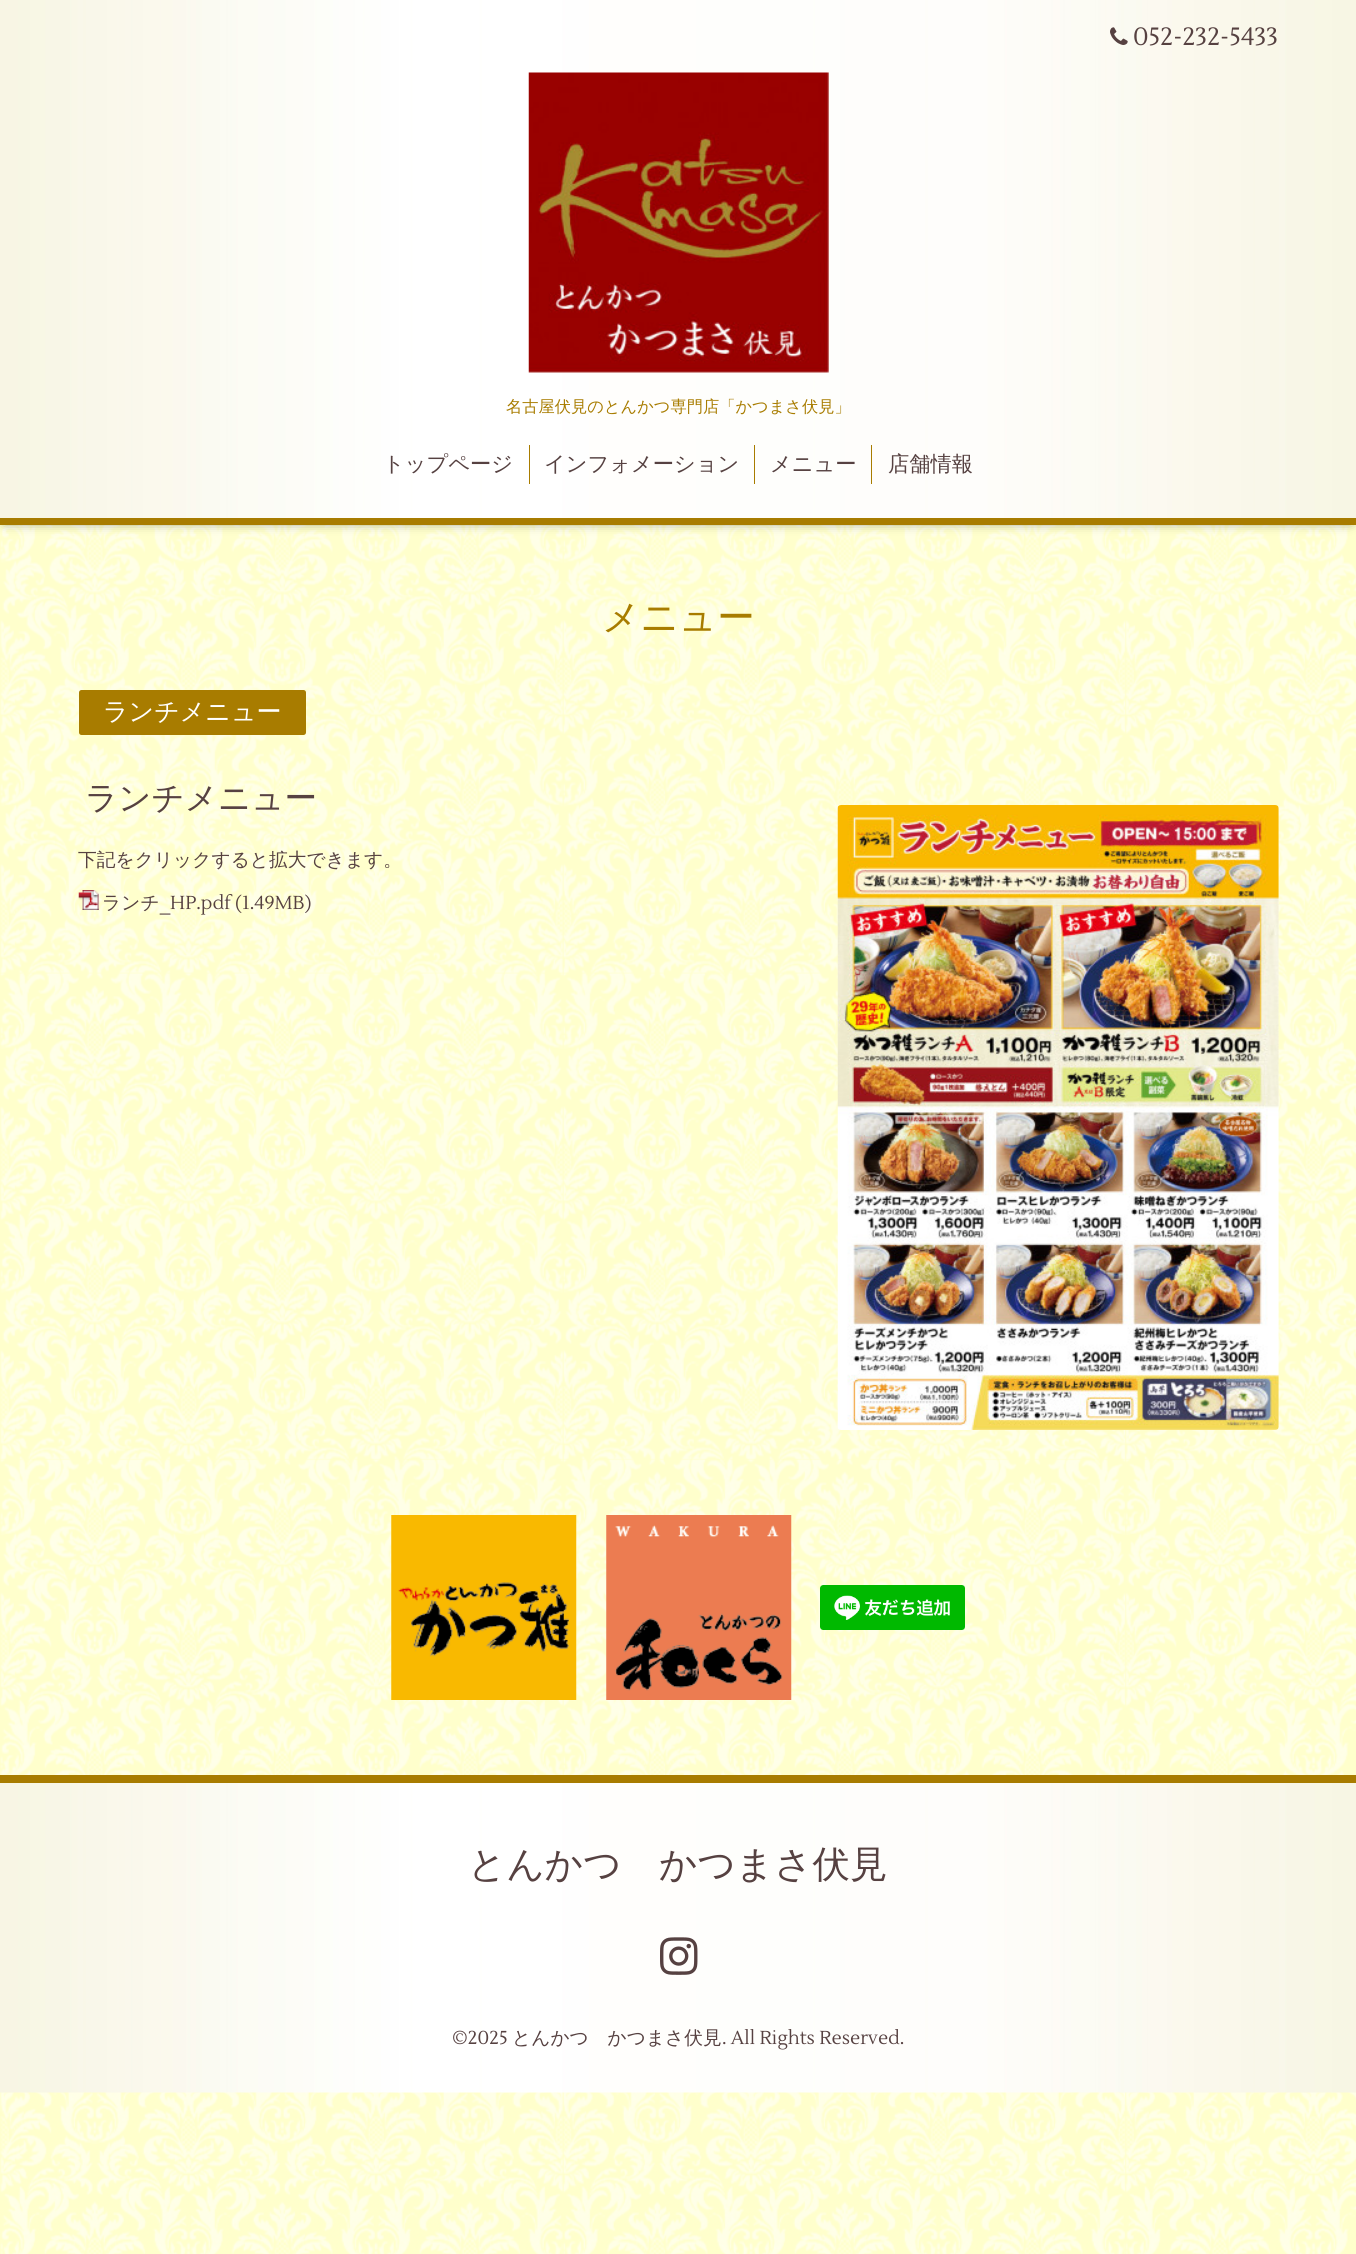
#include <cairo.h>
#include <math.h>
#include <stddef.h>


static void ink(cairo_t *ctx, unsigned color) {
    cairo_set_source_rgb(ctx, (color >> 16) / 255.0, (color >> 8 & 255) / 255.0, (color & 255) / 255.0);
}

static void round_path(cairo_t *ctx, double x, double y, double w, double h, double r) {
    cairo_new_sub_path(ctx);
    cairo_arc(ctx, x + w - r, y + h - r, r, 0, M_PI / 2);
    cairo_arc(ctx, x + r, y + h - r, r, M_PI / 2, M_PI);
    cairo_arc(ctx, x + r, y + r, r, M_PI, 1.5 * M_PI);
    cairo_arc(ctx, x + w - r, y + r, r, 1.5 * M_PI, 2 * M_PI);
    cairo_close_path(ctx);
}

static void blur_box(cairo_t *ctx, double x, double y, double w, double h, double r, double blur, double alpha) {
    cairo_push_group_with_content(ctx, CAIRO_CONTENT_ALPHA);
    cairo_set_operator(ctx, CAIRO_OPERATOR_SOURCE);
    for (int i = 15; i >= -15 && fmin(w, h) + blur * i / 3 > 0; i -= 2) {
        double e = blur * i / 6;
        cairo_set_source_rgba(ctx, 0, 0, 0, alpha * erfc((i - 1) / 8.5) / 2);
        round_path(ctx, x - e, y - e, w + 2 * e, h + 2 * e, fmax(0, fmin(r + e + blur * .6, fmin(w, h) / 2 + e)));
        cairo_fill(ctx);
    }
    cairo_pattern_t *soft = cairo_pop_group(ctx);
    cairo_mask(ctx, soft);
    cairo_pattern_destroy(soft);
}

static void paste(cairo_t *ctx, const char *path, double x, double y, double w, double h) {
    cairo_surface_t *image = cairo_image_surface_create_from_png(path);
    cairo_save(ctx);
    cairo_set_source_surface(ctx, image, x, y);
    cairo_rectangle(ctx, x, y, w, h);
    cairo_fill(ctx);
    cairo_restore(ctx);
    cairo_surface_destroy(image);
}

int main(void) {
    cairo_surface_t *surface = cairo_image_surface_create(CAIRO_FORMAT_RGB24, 1356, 2254);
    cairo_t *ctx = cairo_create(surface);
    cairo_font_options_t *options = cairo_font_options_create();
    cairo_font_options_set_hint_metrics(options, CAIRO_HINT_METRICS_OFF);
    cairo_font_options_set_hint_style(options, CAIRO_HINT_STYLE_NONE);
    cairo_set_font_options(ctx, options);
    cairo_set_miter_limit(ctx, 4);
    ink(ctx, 0xFFFFCC);
    cairo_paint(ctx);
    paste(ctx, "media/1.png", 0, 525, 1356, 1729);
    ink(ctx, 0x000000);
    blur_box(ctx, 5, 6, 1346, 515, 0, 6, 0.6);
    paste(ctx, "media/2.png", 0, 0, 1356, 518);
    ink(ctx, 0xA87C00);
    cairo_rectangle(ctx, 0, 518, 1356, 7);
    cairo_fill(ctx);
    paste(ctx, "media/3.png", 1110, 27, 18, 18);
    cairo_select_font_face(ctx, "Lustria", CAIRO_FONT_SLANT_NORMAL, CAIRO_FONT_WEIGHT_NORMAL);
    cairo_set_font_size(ctx, 25);
    ink(ctx, 0x564141);
    cairo_move_to(ctx, 1133, 45);
    cairo_show_text(ctx, "052-232-5433");
    paste(ctx, "media/4.png", 528, 72, 301, 301);
    cairo_select_font_face(ctx, "WenQuanYi Zen Hei Medium", CAIRO_FONT_SLANT_NORMAL, CAIRO_FONT_WEIGHT_NORMAL);
    cairo_set_font_size(ctx, 16.25);
    ink(ctx, 0xA87C00);
    cairo_move_to(ctx, 506, 412);
    cairo_show_text(ctx, "名古屋伏見のとんかつ専門店「かつまさ伏見」");
    cairo_set_font_size(ctx, 21.25);
    ink(ctx, 0x564141);
    cairo_move_to(ctx, 383, 471);
    cairo_show_text(ctx, "トップページ");
    ink(ctx, 0xA87C00);
    cairo_rectangle(ctx, 529, 445, 1, 39);
    cairo_fill(ctx);
    ink(ctx, 0x564141);
    cairo_move_to(ctx, 544, 471);
    cairo_show_text(ctx, "インフォメーション");
    ink(ctx, 0xA87C00);
    cairo_rectangle(ctx, 754, 445, 1, 39);
    cairo_fill(ctx);
    ink(ctx, 0x564141);
    cairo_move_to(ctx, 770, 471);
    cairo_show_text(ctx, "メニュー");
    ink(ctx, 0xA87C00);
    cairo_rectangle(ctx, 871, 445, 1, 39);
    cairo_fill(ctx);
    ink(ctx, 0x564141);
    cairo_move_to(ctx, 888, 471);
    cairo_show_text(ctx, "店舗情報");
    cairo_set_font_size(ctx, 37.5);
    ink(ctx, 0xA87C00);
    cairo_move_to(ctx, 602, 630);
    cairo_show_text(ctx, "メニュー");
    round_path(ctx, 79, 690, 227, 45, 2.5);
    cairo_fill(ctx);
    cairo_set_font_size(ctx, 25);
    ink(ctx, 0xFFFFFF);
    cairo_move_to(ctx, 103, 720);
    cairo_show_text(ctx, "ランチメニュー");
    cairo_set_font_size(ctx, 32.5);
    ink(ctx, 0x564141);
    cairo_move_to(ctx, 85, 809);
    cairo_show_text(ctx, "ランチメニュー");
    cairo_set_font_size(ctx, 18.75);
    cairo_move_to(ctx, 78, 866);
    cairo_show_text(ctx, "下記をクリックすると拡大できます。");
    paste(ctx, "media/5.png", 78, 890, 21, 20);
    cairo_move_to(ctx, 102, 909);
    cairo_show_text(ctx, "ランチ");
    cairo_select_font_face(ctx, "Lustria", CAIRO_FONT_SLANT_NORMAL, CAIRO_FONT_WEIGHT_NORMAL);
    cairo_move_to(ctx, 160, 909);
    cairo_show_text(ctx, "_HP.pdf (1.49MB)");
    paste(ctx, "media/6.png", 837, 805, 442, 625);
    paste(ctx, "media/7.png", 391, 1515, 186, 185);
    paste(ctx, "media/8.png", 606, 1515, 186, 185);
    paste(ctx, "media/9.png", 820, 1585, 145, 45);
    paste(ctx, "media/10.png", 0, 1783, 1356, 310);
    ink(ctx, 0xA87C00);
    cairo_rectangle(ctx, 0, 1775, 1356, 8);
    cairo_fill(ctx);
    cairo_select_font_face(ctx, "WenQuanYi Zen Hei Medium", CAIRO_FONT_SLANT_NORMAL, CAIRO_FONT_WEIGHT_NORMAL);
    cairo_set_font_size(ctx, 37.5);
    ink(ctx, 0x564141);
    cairo_move_to(ctx, 468, 1877);
    cairo_show_text(ctx, "とんかつ　かつまさ伏見");
    paste(ctx, "media/11.png", 660, 1937, 38, 38);
    cairo_select_font_face(ctx, "Lustria", CAIRO_FONT_SLANT_NORMAL, CAIRO_FONT_WEIGHT_NORMAL);
    cairo_set_font_size(ctx, 18.75);
    cairo_move_to(ctx, 452, 2044);
    cairo_show_text(ctx, "©2025");
    cairo_select_font_face(ctx, "WenQuanYi Zen Hei Medium", CAIRO_FONT_SLANT_NORMAL, CAIRO_FONT_WEIGHT_NORMAL);
    cairo_move_to(ctx, 512, 2044);
    cairo_show_text(ctx, "とんかつ　かつまさ伏見");
    cairo_select_font_face(ctx, "Lustria", CAIRO_FONT_SLANT_NORMAL, CAIRO_FONT_WEIGHT_NORMAL);
    cairo_move_to(ctx, 722, 2044);
    cairo_show_text(ctx, ". All Rights Reserved.");
    cairo_surface_write_to_png(surface, "image.png");
    cairo_font_options_destroy(options);
    cairo_destroy(ctx);
    cairo_surface_destroy(surface);
    return 0;
}
